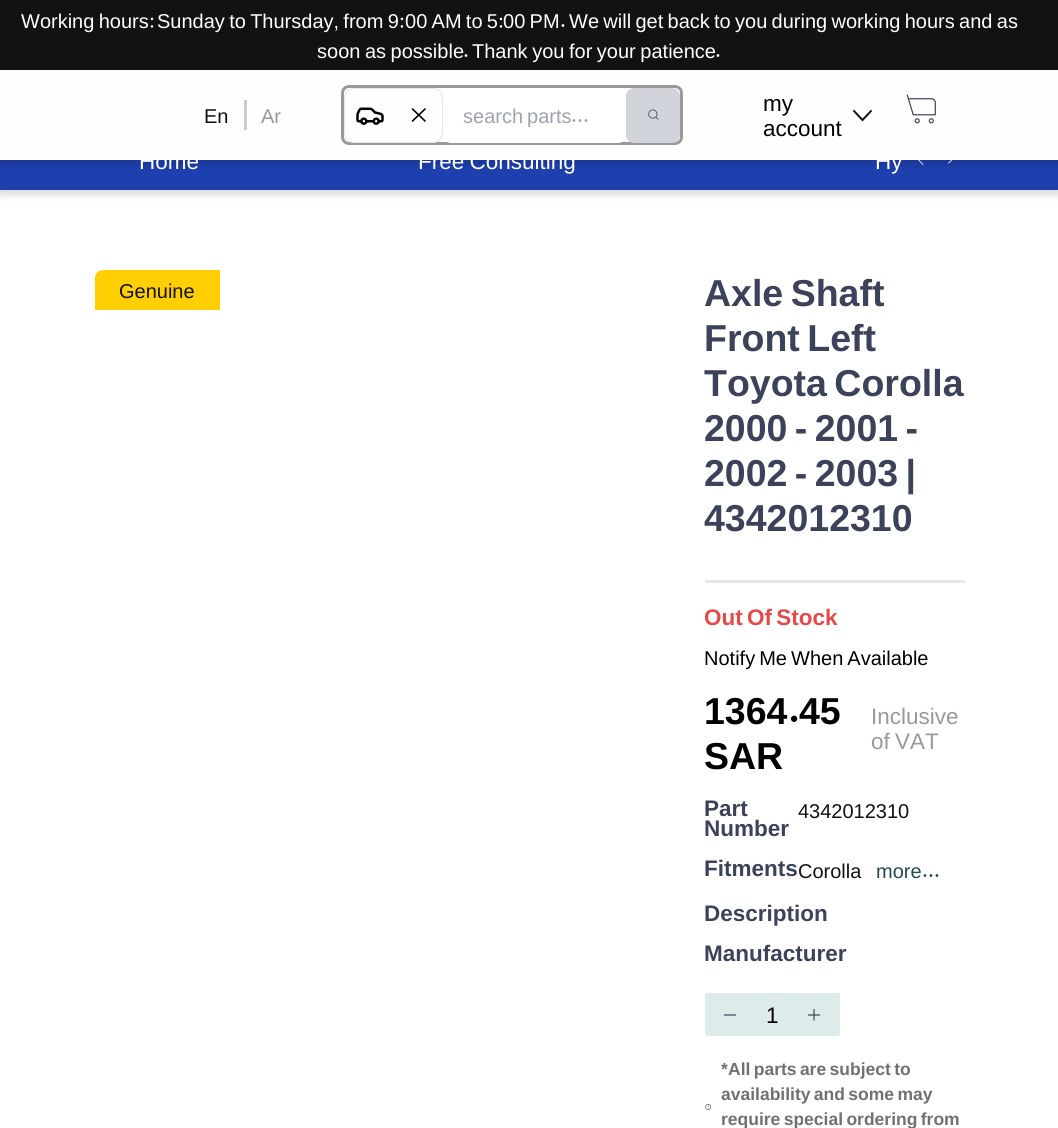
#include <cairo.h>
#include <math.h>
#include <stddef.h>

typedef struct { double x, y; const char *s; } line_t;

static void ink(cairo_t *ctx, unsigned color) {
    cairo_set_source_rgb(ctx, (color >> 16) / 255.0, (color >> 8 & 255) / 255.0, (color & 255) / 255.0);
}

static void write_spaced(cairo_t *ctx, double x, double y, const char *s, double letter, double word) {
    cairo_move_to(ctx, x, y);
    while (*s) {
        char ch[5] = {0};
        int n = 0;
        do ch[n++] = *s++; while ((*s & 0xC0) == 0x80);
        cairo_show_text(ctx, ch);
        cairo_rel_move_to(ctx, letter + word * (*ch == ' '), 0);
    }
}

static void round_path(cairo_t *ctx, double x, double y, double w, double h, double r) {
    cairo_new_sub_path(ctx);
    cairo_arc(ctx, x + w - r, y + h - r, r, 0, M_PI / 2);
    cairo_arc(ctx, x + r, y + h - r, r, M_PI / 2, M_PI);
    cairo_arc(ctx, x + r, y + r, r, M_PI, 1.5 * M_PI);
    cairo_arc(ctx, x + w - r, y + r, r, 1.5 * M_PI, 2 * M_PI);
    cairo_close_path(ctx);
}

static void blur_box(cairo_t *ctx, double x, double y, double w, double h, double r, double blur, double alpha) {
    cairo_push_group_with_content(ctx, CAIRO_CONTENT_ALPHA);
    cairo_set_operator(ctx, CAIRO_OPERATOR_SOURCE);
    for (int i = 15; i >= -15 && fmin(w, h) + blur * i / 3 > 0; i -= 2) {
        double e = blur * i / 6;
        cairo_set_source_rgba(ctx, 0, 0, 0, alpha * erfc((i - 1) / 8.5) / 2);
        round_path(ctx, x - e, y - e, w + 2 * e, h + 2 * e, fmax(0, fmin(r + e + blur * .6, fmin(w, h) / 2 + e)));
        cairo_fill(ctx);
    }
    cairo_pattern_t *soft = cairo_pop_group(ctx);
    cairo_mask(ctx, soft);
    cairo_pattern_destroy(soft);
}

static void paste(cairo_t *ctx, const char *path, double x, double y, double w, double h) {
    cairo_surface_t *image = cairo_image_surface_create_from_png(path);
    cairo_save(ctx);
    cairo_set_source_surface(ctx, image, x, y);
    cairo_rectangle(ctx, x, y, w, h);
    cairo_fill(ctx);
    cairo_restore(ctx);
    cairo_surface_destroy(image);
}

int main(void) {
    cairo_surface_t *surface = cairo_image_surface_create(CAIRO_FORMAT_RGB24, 1058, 1128);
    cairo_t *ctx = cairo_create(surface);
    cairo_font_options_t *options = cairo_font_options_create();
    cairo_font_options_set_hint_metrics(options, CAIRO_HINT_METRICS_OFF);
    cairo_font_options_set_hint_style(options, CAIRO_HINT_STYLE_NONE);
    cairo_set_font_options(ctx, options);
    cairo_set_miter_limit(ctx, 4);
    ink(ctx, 0xFFFFFF);
    cairo_paint(ctx);
    ink(ctx, 0x000000);
    blur_box(ctx, 0, 135, 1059, 60, 0, 4, 0.15);
    ink(ctx, 0x1E40AF);
    cairo_rectangle(ctx, 0, 160, 1058, 30);
    cairo_fill(ctx);
    cairo_new_path(ctx);
    cairo_move_to(ctx, 923, 164.5);
    cairo_line_to(ctx, 919, 160.5);
    cairo_line_to(ctx, 923, 157);
    cairo_move_to(ctx, 948.5, 155.5);
    cairo_line_to(ctx, 952.5, 159.5);
    cairo_line_to(ctx, 948.5, 163);
    ink(ctx, 0xFEFEFE);
    cairo_set_line_width(ctx, 0.9);
    cairo_set_line_cap(ctx, CAIRO_LINE_CAP_ROUND);
    cairo_stroke(ctx);
    ink(ctx, 0x000000);
    blur_box(ctx, 0, 5, 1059, 160, 0, 4, 0.15);
    ink(ctx, 0xFEFEFE);
    cairo_rectangle(ctx, 0, 70, 1058, 90);
    cairo_fill(ctx);
    ink(ctx, 0x121212);
    cairo_rectangle(ctx, 0, 0, 1058, 70);
    cairo_fill(ctx);
    cairo_select_font_face(ctx, "Liberation Sans", CAIRO_FONT_SLANT_NORMAL, CAIRO_FONT_WEIGHT_NORMAL);
    cairo_set_font_size(ctx, 20);
    ink(ctx, 0xFEFEFE);
    write_spaced(ctx, 21, 28, "Working hours", 0, -1.25);
    cairo_select_font_face(ctx, "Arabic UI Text", CAIRO_FONT_SLANT_NORMAL, CAIRO_FONT_WEIGHT_NORMAL);
    cairo_move_to(ctx, 149, 28);
    cairo_show_text(ctx, ":");
    cairo_select_font_face(ctx, "Liberation Sans", CAIRO_FONT_SLANT_NORMAL, CAIRO_FONT_WEIGHT_NORMAL);
    write_spaced(ctx, 157, 28, "Sunday to Thursday, from 9", 0, -1.25);
    cairo_select_font_face(ctx, "Arabic UI Text", CAIRO_FONT_SLANT_NORMAL, CAIRO_FONT_WEIGHT_NORMAL);
    cairo_move_to(ctx, 399, 28);
    cairo_show_text(ctx, ":");
    cairo_select_font_face(ctx, "Liberation Sans", CAIRO_FONT_SLANT_NORMAL, CAIRO_FONT_WEIGHT_NORMAL);
    write_spaced(ctx, 405, 28, "00 AM to 5", 0, -1.25);
    cairo_select_font_face(ctx, "Arabic UI Text", CAIRO_FONT_SLANT_NORMAL, CAIRO_FONT_WEIGHT_NORMAL);
    cairo_move_to(ctx, 498, 28);
    cairo_show_text(ctx, ":");
    cairo_select_font_face(ctx, "Liberation Sans", CAIRO_FONT_SLANT_NORMAL, CAIRO_FONT_WEIGHT_NORMAL);
    write_spaced(ctx, 503, 28, "00 PM", 0, -1.25);
    cairo_select_font_face(ctx, "Arabic UI Text", CAIRO_FONT_SLANT_NORMAL, CAIRO_FONT_WEIGHT_NORMAL);
    cairo_move_to(ctx, 560, 28);
    cairo_show_text(ctx, ".");
    cairo_select_font_face(ctx, "Liberation Sans", CAIRO_FONT_SLANT_NORMAL, CAIRO_FONT_WEIGHT_NORMAL);
    write_spaced(ctx, 569, 28, "We will get back to you during working hours and as", 0, -1.25);
    write_spaced(ctx, 317, 58, "soon as possible", 0, -1);
    cairo_select_font_face(ctx, "Arabic UI Text", CAIRO_FONT_SLANT_NORMAL, CAIRO_FONT_WEIGHT_NORMAL);
    cairo_move_to(ctx, 463, 58);
    cairo_show_text(ctx, ".");
    cairo_select_font_face(ctx, "Liberation Sans", CAIRO_FONT_SLANT_NORMAL, CAIRO_FONT_WEIGHT_NORMAL);
    write_spaced(ctx, 472, 58, "Thank you for your patience", 0, -1);
    cairo_select_font_face(ctx, "Arabic UI Text", CAIRO_FONT_SLANT_NORMAL, CAIRO_FONT_WEIGHT_NORMAL);
    cairo_move_to(ctx, 715, 58);
    cairo_show_text(ctx, ".");
    cairo_select_font_face(ctx, "Liberation Sans", CAIRO_FONT_SLANT_NORMAL, CAIRO_FONT_WEIGHT_NORMAL);
    ink(ctx, 0x121212);
    cairo_move_to(ctx, 204, 123);
    cairo_show_text(ctx, "En");
    ink(ctx, 0xCCCCCC);
    cairo_rectangle(ctx, 244, 100, 3, 30);
    cairo_fill(ctx);
    ink(ctx, 0x999999);
    cairo_move_to(ctx, 261, 123);
    cairo_show_text(ctx, "Ar");
    round_path(ctx, 342.5, 86.5, 339, 57, 6.5);
    cairo_set_line_width(ctx, 3);
    cairo_set_line_cap(ctx, CAIRO_LINE_CAP_BUTT);
    cairo_stroke(ctx);
    ink(ctx, 0xFEFEFE);
    round_path(ctx, 344.5, 88.5, 98, 54, 9.5);
    cairo_fill_preserve(ctx);
    ink(ctx, 0xE5E7EB);
    cairo_set_line_width(ctx, 1);
    cairo_stroke(ctx);
    paste(ctx, "media/1.png", 356, 107, 28, 18);
    cairo_new_path(ctx);
    cairo_move_to(ctx, 425, 109);
    cairo_line_to(ctx, 412.5, 121);
    cairo_move_to(ctx, 412.5, 109);
    cairo_line_to(ctx, 425, 121);
    ink(ctx, 0x000000);
    cairo_set_line_width(ctx, 1.6);
    cairo_set_line_cap(ctx, CAIRO_LINE_CAP_ROUND);
    cairo_set_line_join(ctx, CAIRO_LINE_JOIN_ROUND);
    cairo_stroke(ctx);
    ink(ctx, 0xFFFFFF);
    round_path(ctx, 443, 88, 183, 55, 8);
    cairo_fill(ctx);
    ink(ctx, 0x9CA3AF);
    write_spaced(ctx, 463, 123, "search parts", 0, -1.5);
    cairo_select_font_face(ctx, "Arabic UI Text", CAIRO_FONT_SLANT_NORMAL, CAIRO_FONT_WEIGHT_NORMAL);
    cairo_move_to(ctx, 571, 123);
    cairo_show_text(ctx, "...");
    ink(ctx, 0xD1D5DB);
    round_path(ctx, 626, 88, 54, 55, 8);
    cairo_fill(ctx);
    paste(ctx, "media/2.png", 648, 109, 11, 11);
    cairo_select_font_face(ctx, "Liberation Sans", CAIRO_FONT_SLANT_NORMAL, CAIRO_FONT_WEIGHT_NORMAL);
    cairo_set_font_size(ctx, 22.5);
    ink(ctx, 0x000000);
    cairo_move_to(ctx, 763, 111);
    cairo_show_text(ctx, "my");
    cairo_move_to(ctx, 763, 136);
    cairo_show_text(ctx, "account");
    cairo_new_path(ctx);
    cairo_move_to(ctx, 871, 111);
    cairo_line_to(ctx, 862.5, 120);
    cairo_line_to(ctx, 854, 111);
    ink(ctx, 0x121212);
    cairo_set_line_width(ctx, 2);
    cairo_set_line_join(ctx, CAIRO_LINE_JOIN_MITER);
    cairo_stroke(ctx);
    paste(ctx, "media/3.png", 906, 94, 30, 30);
    ink(ctx, 0xFEFEFE);
    cairo_move_to(ctx, 139, 169);
    cairo_show_text(ctx, "Home");
    write_spaced(ctx, 418, 169, "Free Consulting", 0, -1);
    cairo_move_to(ctx, 875, 169);
    cairo_show_text(ctx, "Hy");
    ink(ctx, 0xFFCE03);
    cairo_new_path(ctx);
    cairo_move_to(ctx, 103, 270);
    cairo_line_to(ctx, 220, 270);
    cairo_line_to(ctx, 220, 310);
    cairo_line_to(ctx, 95, 310);
    cairo_line_to(ctx, 95, 278);
    cairo_curve_to(ctx, 95, 273.5, 98.5, 270, 103, 270);
    cairo_close_path(ctx);
    cairo_fill(ctx);
    cairo_set_font_size(ctx, 20);
    ink(ctx, 0x121212);
    cairo_move_to(ctx, 119, 298);
    cairo_show_text(ctx, "Genuine");
    cairo_select_font_face(ctx, "Liberation Sans", CAIRO_FONT_SLANT_NORMAL, CAIRO_FONT_WEIGHT_BOLD);
    cairo_set_font_size(ctx, 37.5);
    ink(ctx, 0x3C425A);
    {
        static const line_t items[] = {
            {704, 306, "Axle Shaft"},
            {704, 351, "Front Left"},
            {704, 396, "Toyota Corolla"},
            {704, 441, "2000 - 2001 -"},
            {704, 486, "2002 - 2003 |"},
        };
        for (size_t i = 0; i < sizeof items / sizeof *items; i++) {
            write_spaced(ctx, items[i].x, items[i].y, items[i].s, 0, -3);
        }
    }
    cairo_move_to(ctx, 704, 531);
    cairo_show_text(ctx, "4342012310");
    ink(ctx, 0xE5E7EB);
    cairo_rectangle(ctx, 705, 580, 260, 3);
    cairo_fill(ctx);
    cairo_set_font_size(ctx, 22.5);
    ink(ctx, 0xE74949);
    write_spaced(ctx, 704, 625, "Out Of Stock", 0, -2);
    cairo_select_font_face(ctx, "Liberation Sans", CAIRO_FONT_SLANT_NORMAL, CAIRO_FONT_WEIGHT_NORMAL);
    cairo_set_font_size(ctx, 20);
    ink(ctx, 0x000000);
    write_spaced(ctx, 704, 665, "Notify Me When Available", 0, -1.5);
    cairo_select_font_face(ctx, "Liberation Sans", CAIRO_FONT_SLANT_NORMAL, CAIRO_FONT_WEIGHT_BOLD);
    cairo_set_font_size(ctx, 37.5);
    cairo_move_to(ctx, 704, 724);
    cairo_show_text(ctx, "1364");
    cairo_select_font_face(ctx, "Arabic UI Text", CAIRO_FONT_SLANT_NORMAL, CAIRO_FONT_WEIGHT_BOLD);
    cairo_move_to(ctx, 788, 724);
    cairo_show_text(ctx, ".");
    cairo_select_font_face(ctx, "Liberation Sans", CAIRO_FONT_SLANT_NORMAL, CAIRO_FONT_WEIGHT_BOLD);
    cairo_move_to(ctx, 799, 724);
    cairo_show_text(ctx, "45");
    cairo_move_to(ctx, 704, 769);
    cairo_show_text(ctx, "SAR");
    cairo_select_font_face(ctx, "Liberation Sans", CAIRO_FONT_SLANT_NORMAL, CAIRO_FONT_WEIGHT_NORMAL);
    cairo_set_font_size(ctx, 22.5);
    ink(ctx, 0x999999);
    cairo_move_to(ctx, 871, 724);
    cairo_show_text(ctx, "Inclusive");
    write_spaced(ctx, 871, 749, "of VAT", 0, -1);
    cairo_select_font_face(ctx, "Liberation Sans", CAIRO_FONT_SLANT_NORMAL, CAIRO_FONT_WEIGHT_BOLD);
    ink(ctx, 0x3C425A);
    cairo_move_to(ctx, 704, 816);
    cairo_show_text(ctx, "Part");
    cairo_move_to(ctx, 704, 836);
    cairo_show_text(ctx, "Number");
    cairo_select_font_face(ctx, "Liberation Sans", CAIRO_FONT_SLANT_NORMAL, CAIRO_FONT_WEIGHT_NORMAL);
    cairo_set_font_size(ctx, 20);
    ink(ctx, 0x121212);
    cairo_move_to(ctx, 798, 818);
    cairo_show_text(ctx, "4342012310");
    cairo_select_font_face(ctx, "Liberation Sans", CAIRO_FONT_SLANT_NORMAL, CAIRO_FONT_WEIGHT_BOLD);
    cairo_set_font_size(ctx, 22.5);
    ink(ctx, 0x3C425A);
    cairo_move_to(ctx, 704, 876);
    cairo_show_text(ctx, "Fitments");
    cairo_select_font_face(ctx, "Liberation Sans", CAIRO_FONT_SLANT_NORMAL, CAIRO_FONT_WEIGHT_NORMAL);
    cairo_set_font_size(ctx, 20);
    ink(ctx, 0x121212);
    cairo_move_to(ctx, 798, 878);
    cairo_show_text(ctx, "Corolla");
    ink(ctx, 0x254A55);
    cairo_move_to(ctx, 876, 878);
    cairo_show_text(ctx, "more");
    cairo_select_font_face(ctx, "Arabic UI Text", CAIRO_FONT_SLANT_NORMAL, CAIRO_FONT_WEIGHT_NORMAL);
    cairo_move_to(ctx, 922, 878);
    cairo_show_text(ctx, "...");
    cairo_select_font_face(ctx, "Liberation Sans", CAIRO_FONT_SLANT_NORMAL, CAIRO_FONT_WEIGHT_BOLD);
    cairo_set_font_size(ctx, 22.5);
    ink(ctx, 0x3C425A);
    cairo_move_to(ctx, 704, 921);
    cairo_show_text(ctx, "Description");
    cairo_move_to(ctx, 704, 961);
    cairo_show_text(ctx, "Manufacturer");
    ink(ctx, 0xDDEBEB);
    round_path(ctx, 705, 993, 135, 43, 2.5);
    cairo_fill(ctx);
    cairo_new_path(ctx);
    cairo_move_to(ctx, 724.5, 1015);
    cairo_line_to(ctx, 735.5, 1015);
    ink(ctx, 0x3C425A);
    cairo_set_line_width(ctx, 1.2);
    cairo_set_line_join(ctx, CAIRO_LINE_JOIN_ROUND);
    cairo_stroke(ctx);
    cairo_select_font_face(ctx, "Liberation Sans", CAIRO_FONT_SLANT_NORMAL, CAIRO_FONT_WEIGHT_NORMAL);
    ink(ctx, 0x000000);
    cairo_move_to(ctx, 766, 1023);
    cairo_show_text(ctx, "1");
    cairo_new_path(ctx);
    cairo_move_to(ctx, 814, 1009.5);
    cairo_line_to(ctx, 814, 1020);
    cairo_move_to(ctx, 808.5, 1015);
    cairo_line_to(ctx, 819.5, 1015);
    ink(ctx, 0x3C425A);
    cairo_stroke(ctx);
    paste(ctx, "media/4.png", 705, 1104, 6, 6);
    cairo_select_font_face(ctx, "Liberation Sans", CAIRO_FONT_SLANT_NORMAL, CAIRO_FONT_WEIGHT_BOLD);
    cairo_set_font_size(ctx, 17.5);
    ink(ctx, 0x717171);
    cairo_move_to(ctx, 721, 1075);
    cairo_show_text(ctx, "*");
    {
        static const line_t items[] = {
            {728, 1075, "All parts are subject to"},
            {721, 1100, "availability and some may"},
            {721, 1125, "require special ordering from"},
        };
        for (size_t i = 0; i < sizeof items / sizeof *items; i++) {
            write_spaced(ctx, items[i].x, items[i].y, items[i].s, 0, -1.5);
        }
    }
    cairo_surface_write_to_png(surface, "image.png");
    cairo_font_options_destroy(options);
    cairo_destroy(ctx);
    cairo_surface_destroy(surface);
    return 0;
}
